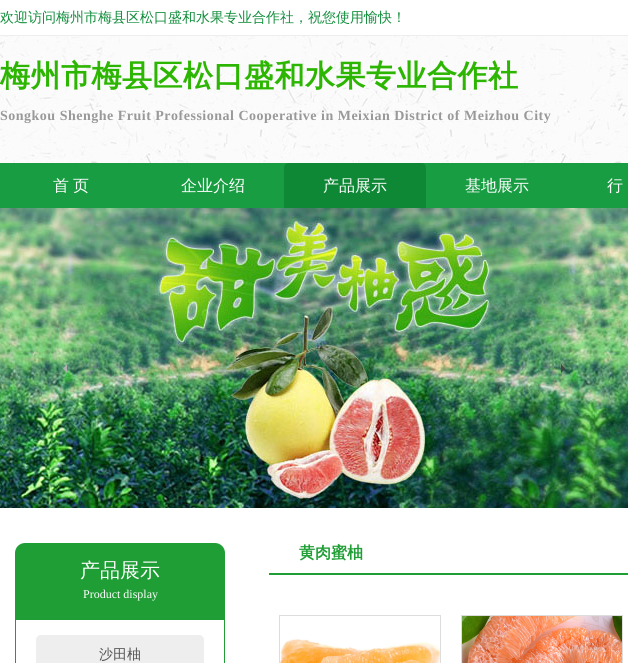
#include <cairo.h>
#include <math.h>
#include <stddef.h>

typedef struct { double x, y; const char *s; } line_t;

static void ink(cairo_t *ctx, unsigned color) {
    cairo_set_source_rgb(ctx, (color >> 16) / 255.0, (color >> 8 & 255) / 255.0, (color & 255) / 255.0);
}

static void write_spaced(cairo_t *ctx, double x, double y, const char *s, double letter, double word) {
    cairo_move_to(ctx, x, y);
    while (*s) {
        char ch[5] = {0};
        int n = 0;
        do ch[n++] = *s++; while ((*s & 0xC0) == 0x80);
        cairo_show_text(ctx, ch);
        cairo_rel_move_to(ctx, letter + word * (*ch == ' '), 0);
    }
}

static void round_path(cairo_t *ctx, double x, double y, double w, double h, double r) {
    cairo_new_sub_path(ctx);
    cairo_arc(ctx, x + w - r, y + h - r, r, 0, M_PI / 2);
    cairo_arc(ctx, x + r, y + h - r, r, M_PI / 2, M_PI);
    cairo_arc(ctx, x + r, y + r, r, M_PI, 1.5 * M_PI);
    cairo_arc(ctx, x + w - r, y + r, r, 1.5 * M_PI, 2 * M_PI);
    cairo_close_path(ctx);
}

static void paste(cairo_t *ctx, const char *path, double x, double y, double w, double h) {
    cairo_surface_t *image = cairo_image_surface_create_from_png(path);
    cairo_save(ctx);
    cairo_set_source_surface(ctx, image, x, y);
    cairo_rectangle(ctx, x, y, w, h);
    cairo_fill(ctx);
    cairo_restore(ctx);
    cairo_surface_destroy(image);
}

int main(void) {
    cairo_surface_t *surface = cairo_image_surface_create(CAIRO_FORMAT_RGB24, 628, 663);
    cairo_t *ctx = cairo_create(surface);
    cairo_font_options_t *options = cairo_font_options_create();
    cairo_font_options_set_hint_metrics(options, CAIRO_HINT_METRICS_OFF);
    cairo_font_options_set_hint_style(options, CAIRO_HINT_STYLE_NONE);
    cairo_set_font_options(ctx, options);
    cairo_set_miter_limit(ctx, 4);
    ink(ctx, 0xFFFFFF);
    cairo_paint(ctx);
    ink(ctx, 0xEEEEEE);
    cairo_rectangle(ctx, 0, 35, 628, 1);
    cairo_fill(ctx);
    cairo_select_font_face(ctx, "WenQuanYi Zen Hei Medium", CAIRO_FONT_SLANT_NORMAL, CAIRO_FONT_WEIGHT_NORMAL);
    cairo_set_font_size(ctx, 14);
    ink(ctx, 0x128D3C);
    cairo_move_to(ctx, 0, 22);
    cairo_show_text(ctx, "欢迎访问梅州市梅县区松口盛和水果专业合作社，祝您使用愉快！");
    paste(ctx, "media/1.png", 0, 36, 628, 127);
    cairo_select_font_face(ctx, "WenQuanYi Zen Hei", CAIRO_FONT_SLANT_NORMAL, CAIRO_FONT_WEIGHT_BOLD);
    cairo_set_font_size(ctx, 30);
    ink(ctx, 0x2CB601);
    write_spaced(ctx, 0, 86, "梅州市梅县区松口盛和水果专业合作社", 0.5, 0);
    cairo_select_font_face(ctx, "Liberation Serif", CAIRO_FONT_SLANT_NORMAL, CAIRO_FONT_WEIGHT_BOLD);
    cairo_set_font_size(ctx, 14);
    ink(ctx, 0x999999);
    write_spaced(ctx, 0, 120, "Songkou Shenghe Fruit Professional Cooperative in Meixian District of Meizhou City", 0.5, 0);
    ink(ctx, 0x189D42);
    cairo_rectangle(ctx, 0, 163, 628, 45);
    cairo_fill(ctx);
    cairo_select_font_face(ctx, "WenQuanYi Zen Hei Medium", CAIRO_FONT_SLANT_NORMAL, CAIRO_FONT_WEIGHT_NORMAL);
    cairo_set_font_size(ctx, 16);
    ink(ctx, 0xFFFFFF);
    {
        static const line_t items[] = {
            {53, 191, "首"},
            {73, 191, "页"},
            {181, 191, "企业介绍"},
        };
        for (size_t i = 0; i < sizeof items / sizeof *items; i++) {
            cairo_move_to(ctx, items[i].x, items[i].y);
            cairo_show_text(ctx, items[i].s);
        }
    }
    ink(ctx, 0x0F8836);
    cairo_new_path(ctx);
    cairo_move_to(ctx, 289, 163);
    cairo_line_to(ctx, 421, 163);
    cairo_curve_to(ctx, 424, 163, 426, 165, 426, 168);
    cairo_line_to(ctx, 426, 208);
    cairo_line_to(ctx, 284, 208);
    cairo_line_to(ctx, 284, 168);
    cairo_curve_to(ctx, 284, 165, 286, 163, 289, 163);
    cairo_close_path(ctx);
    cairo_fill(ctx);
    ink(ctx, 0xFFFFFF);
    {
        static const line_t items[] = {
            {323, 191, "产品展示"},
            {465, 191, "基地展示"},
            {607, 191, "行"},
        };
        for (size_t i = 0; i < sizeof items / sizeof *items; i++) {
            cairo_move_to(ctx, items[i].x, items[i].y);
            cairo_show_text(ctx, items[i].s);
        }
    }
    paste(ctx, "media/2.png", 0, 208, 628, 300);
    paste(ctx, "media/3.png", 63, 364, 4, 9);
    paste(ctx, "media/4.png", 561, 364, 4, 9);
    ink(ctx, 0x1E9E34);
    cairo_rectangle(ctx, 269, 573, 359, 2);
    cairo_fill(ctx);
    cairo_select_font_face(ctx, "WenQuanYi Zen Hei", CAIRO_FONT_SLANT_NORMAL, CAIRO_FONT_WEIGHT_BOLD);
    cairo_move_to(ctx, 299, 558);
    cairo_show_text(ctx, "黄肉蜜柚");
    cairo_rectangle(ctx, 279.5, 615.5, 161, 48);
    ink(ctx, 0xDDDDDD);
    cairo_set_line_width(ctx, 1);
    cairo_stroke(ctx);
    paste(ctx, "media/5.png", 280, 639, 160, 24);
    cairo_rectangle(ctx, 461.5, 615.5, 161, 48);
    cairo_stroke(ctx);
    paste(ctx, "media/6.png", 462, 616, 160, 47);
    ink(ctx, 0x1E9E34);
    cairo_new_path(ctx);
    cairo_move_to(ctx, 25, 543);
    cairo_line_to(ctx, 215, 543);
    cairo_curve_to(ctx, 220.5, 543, 225, 547.5, 225, 553);
    cairo_line_to(ctx, 225, 619);
    cairo_line_to(ctx, 15, 619);
    cairo_line_to(ctx, 15, 553);
    cairo_curve_to(ctx, 15, 547.5, 19.5, 543, 25, 543);
    cairo_close_path(ctx);
    cairo_fill(ctx);
    cairo_select_font_face(ctx, "WenQuanYi Zen Hei Medium", CAIRO_FONT_SLANT_NORMAL, CAIRO_FONT_WEIGHT_NORMAL);
    cairo_set_font_size(ctx, 20);
    ink(ctx, 0xFFFFFF);
    cairo_move_to(ctx, 80, 577);
    cairo_show_text(ctx, "产品展示");
    cairo_select_font_face(ctx, "Liberation Serif", CAIRO_FONT_SLANT_NORMAL, CAIRO_FONT_WEIGHT_NORMAL);
    cairo_set_font_size(ctx, 12);
    cairo_move_to(ctx, 83, 598);
    cairo_show_text(ctx, "Product display");
    cairo_rectangle(ctx, 15.5, 619.5, 209, 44);
    ink(ctx, 0x1E9E34);
    cairo_stroke(ctx);
    ink(ctx, 0xEEEEEE);
    round_path(ctx, 36, 635, 168, 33, 5);
    cairo_fill(ctx);
    cairo_select_font_face(ctx, "WenQuanYi Zen Hei Medium", CAIRO_FONT_SLANT_NORMAL, CAIRO_FONT_WEIGHT_NORMAL);
    cairo_set_font_size(ctx, 14);
    ink(ctx, 0x555555);
    cairo_move_to(ctx, 99, 659);
    cairo_show_text(ctx, "沙田柚");
    cairo_surface_write_to_png(surface, "image.png");
    cairo_font_options_destroy(options);
    cairo_destroy(ctx);
    cairo_surface_destroy(surface);
    return 0;
}
